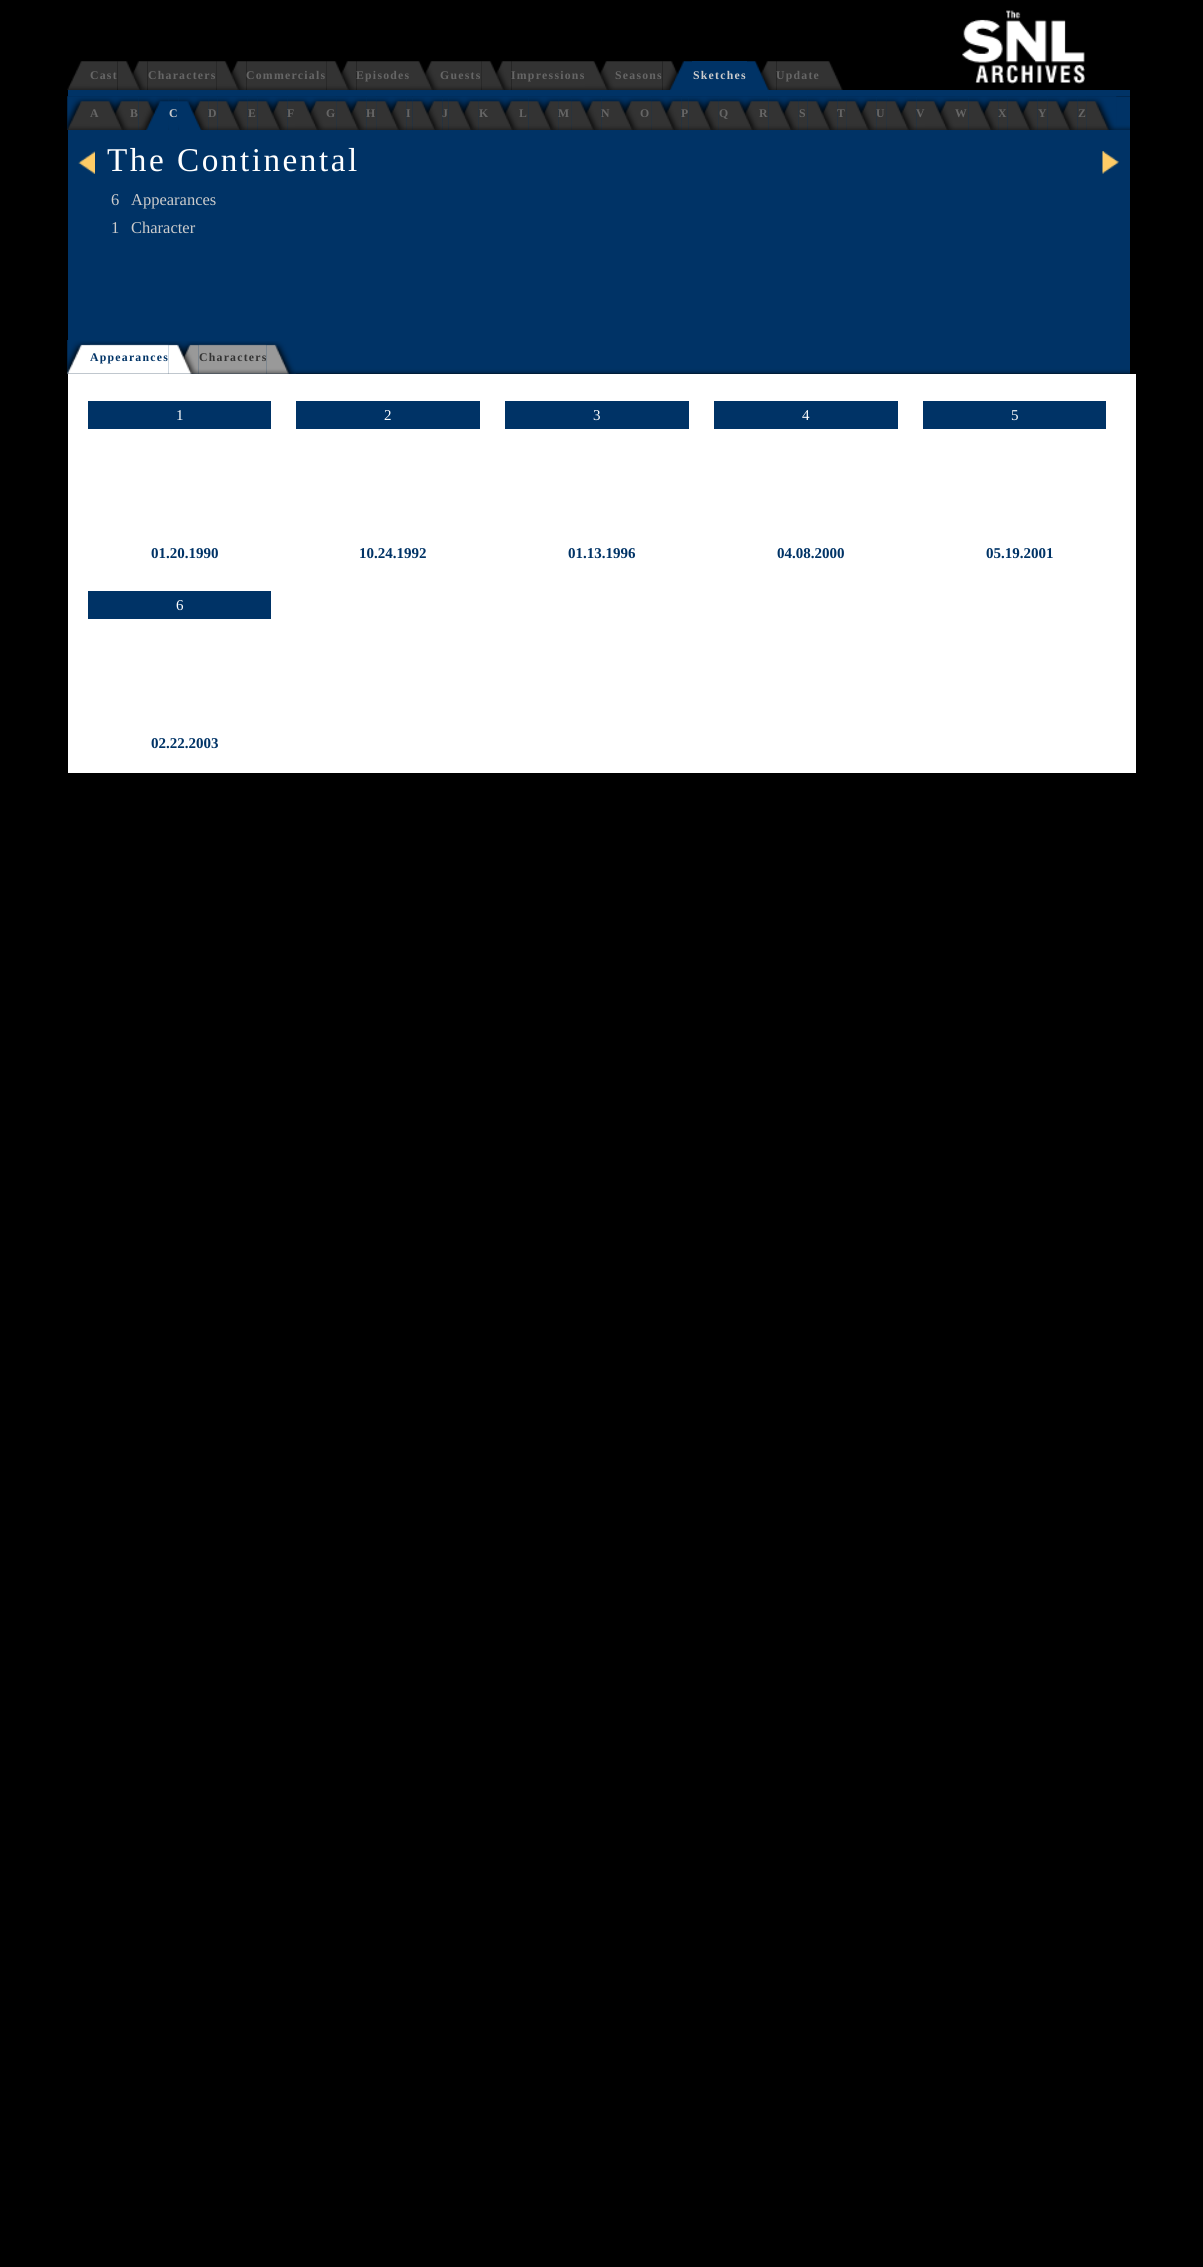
#include <cairo.h>
#include <math.h>
#include <stddef.h>

typedef struct { double x, y; const char *s; } line_t;

static void ink(cairo_t *ctx, unsigned color) {
    cairo_set_source_rgb(ctx, (color >> 16) / 255.0, (color >> 8 & 255) / 255.0, (color & 255) / 255.0);
}

static void write_spaced(cairo_t *ctx, double x, double y, const char *s, double letter, double word) {
    cairo_move_to(ctx, x, y);
    while (*s) {
        char ch[5] = {0};
        int n = 0;
        do ch[n++] = *s++; while ((*s & 0xC0) == 0x80);
        cairo_show_text(ctx, ch);
        cairo_rel_move_to(ctx, letter + word * (*ch == ' '), 0);
    }
}

static void paste(cairo_t *ctx, const char *path, double x, double y, double w, double h) {
    cairo_surface_t *image = cairo_image_surface_create_from_png(path);
    cairo_save(ctx);
    cairo_set_source_surface(ctx, image, x, y);
    cairo_rectangle(ctx, x, y, w, h);
    cairo_fill(ctx);
    cairo_restore(ctx);
    cairo_surface_destroy(image);
}

int main(void) {
    cairo_surface_t *surface = cairo_image_surface_create(CAIRO_FORMAT_RGB24, 1203, 2267);
    cairo_t *ctx = cairo_create(surface);
    cairo_font_options_t *options = cairo_font_options_create();
    cairo_font_options_set_hint_metrics(options, CAIRO_HINT_METRICS_OFF);
    cairo_font_options_set_hint_style(options, CAIRO_HINT_STYLE_NONE);
    cairo_set_font_options(ctx, options);
    cairo_set_miter_limit(ctx, 4);
    ink(ctx, 0x000000);
    cairo_paint(ctx);
    paste(ctx, "media/1.png", 67, 61, 23, 29);
    paste(ctx, "media/2.png", 90, 61, 28, 29);
    cairo_select_font_face(ctx, "Liberation Serif", CAIRO_FONT_SLANT_NORMAL, CAIRO_FONT_WEIGHT_BOLD);
    cairo_set_font_size(ctx, 11.75);
    ink(ctx, 0x666666);
    write_spaced(ctx, 90, 79, "Cast", 1.25, 0);
    paste(ctx, "media/4.png", 147, 61, 70, 29);
    paste(ctx, "media/3.png", 117, 61, 31, 29);
    write_spaced(ctx, 148, 79, "Characters", 1.25, 0);
    paste(ctx, "media/5.png", 216, 61, 30, 29);
    paste(ctx, "media/6.png", 246, 61, 81, 29);
    write_spaced(ctx, 246, 79, "Commercials", 1.25, 0);
    paste(ctx, "media/5.png", 326, 61, 30, 29);
    paste(ctx, "media/7.png", 356, 61, 54, 29);
    write_spaced(ctx, 356, 79, "Episodes", 1.25, 0);
    paste(ctx, "media/8.png", 410, 61, 30, 29);
    paste(ctx, "media/9.png", 440, 61, 42, 29);
    write_spaced(ctx, 440, 79, "Guests", 1.25, 0);
    paste(ctx, "media/5.png", 481, 61, 30, 29);
    paste(ctx, "media/10.png", 511, 61, 74, 29);
    write_spaced(ctx, 511, 79, "Impressions", 1.25, 0);
    paste(ctx, "media/11.png", 585, 61, 30, 29);
    paste(ctx, "media/12.png", 615, 61, 48, 29);
    write_spaced(ctx, 615, 79, "Seasons", 1.25, 0);
    paste(ctx, "media/13.png", 662, 61, 30, 29);
    ink(ctx, 0x003366);
    cairo_rectangle(ctx, 692, 61, 55, 29);
    cairo_fill(ctx);
    ink(ctx, 0xCCCCCC);
    write_spaced(ctx, 693, 79, "Sketches", 1.25, 0);
    paste(ctx, "media/14.png", 747, 61, 29, 29);
    paste(ctx, "media/15.png", 776, 61, 44, 29);
    ink(ctx, 0x666666);
    write_spaced(ctx, 776, 79, "Update", 1.25, 0);
    paste(ctx, "media/16.png", 820, 61, 23, 29);
    paste(ctx, "media/17.png", 962, 10, 123, 74);
    ink(ctx, 0x003366);
    cairo_rectangle(ctx, 68, 90, 1062, 6);
    cairo_fill(ctx);
    paste(ctx, "media/18.png", 67, 96, 1063, 34);
    paste(ctx, "media/19.png", 67, 96, 23, 34);
    paste(ctx, "media/20.png", 90, 96, 10, 34);
    ink(ctx, 0x666666);
    write_spaced(ctx, 90, 117, "A", 1.25, 0);
    paste(ctx, "media/21.png", 100, 96, 30, 34);
    paste(ctx, "media/22.png", 130, 96, 9, 34);
    write_spaced(ctx, 130, 117, "B", 1.25, 0);
    paste(ctx, "media/24.png", 168, 96, 11, 34);
    paste(ctx, "media/23.png", 139, 96, 30, 34);
    ink(ctx, 0xCCCCCC);
    write_spaced(ctx, 169, 117, "C", 1.25, 0);
    paste(ctx, "media/26.png", 208, 96, 10, 34);
    paste(ctx, "media/25.png", 179, 96, 30, 34);
    ink(ctx, 0x666666);
    write_spaced(ctx, 208, 117, "D", 1.25, 0);
    paste(ctx, "media/28.png", 247, 96, 11, 34);
    paste(ctx, "media/27.png", 217, 96, 31, 34);
    write_spaced(ctx, 248, 117, "E", 1.25, 0);
    paste(ctx, "media/29.png", 287, 96, 8, 34);
    paste(ctx, "media/27.png", 257, 96, 31, 34);
    write_spaced(ctx, 287, 117, "F", 1.25, 0);
    paste(ctx, "media/21.png", 295, 96, 30, 34);
    paste(ctx, "media/30.png", 325, 96, 12, 34);
    write_spaced(ctx, 326, 117, "G", 1.25, 0);
    paste(ctx, "media/31.png", 336, 96, 30, 34);
    paste(ctx, "media/32.png", 366, 96, 11, 34);
    write_spaced(ctx, 366, 117, "H", 1.25, 0);
    paste(ctx, "media/31.png", 376, 96, 30, 34);
    paste(ctx, "media/33.png", 406, 96, 7, 34);
    write_spaced(ctx, 406, 117, "I", 1.25, 0);
    paste(ctx, "media/35.png", 442, 96, 7, 34);
    paste(ctx, "media/34.png", 412, 96, 31, 34);
    write_spaced(ctx, 442, 117, "J", 1.25, 0);
    paste(ctx, "media/37.png", 478, 96, 12, 34);
    paste(ctx, "media/36.png", 449, 96, 30, 34);
    write_spaced(ctx, 479, 117, "K", 1.25, 0);
    paste(ctx, "media/38.png", 490, 96, 30, 34);
    paste(ctx, "media/22.png", 520, 96, 9, 34);
    write_spaced(ctx, 519, 117, "L", 1.25, 0);
    paste(ctx, "media/39.png", 558, 96, 14, 34);
    paste(ctx, "media/36.png", 529, 96, 30, 34);
    write_spaced(ctx, 558, 117, "M", 1.25, 0);
    paste(ctx, "media/31.png", 571, 96, 30, 34);
    paste(ctx, "media/40.png", 601, 96, 9, 34);
    write_spaced(ctx, 601, 117, "N", 1.25, 0);
    paste(ctx, "media/21.png", 610, 96, 30, 34);
    paste(ctx, "media/30.png", 640, 96, 12, 34);
    write_spaced(ctx, 640, 117, "O", 1.25, 0);
    paste(ctx, "media/31.png", 651, 96, 30, 34);
    paste(ctx, "media/41.png", 681, 96, 8, 34);
    write_spaced(ctx, 681, 117, "P", 1.25, 0);
    paste(ctx, "media/37.png", 718, 96, 12, 34);
    paste(ctx, "media/42.png", 689, 96, 30, 34);
    write_spaced(ctx, 719, 117, "Q", 1.25, 0);
    paste(ctx, "media/43.png", 730, 96, 30, 34);
    paste(ctx, "media/22.png", 760, 96, 9, 34);
    write_spaced(ctx, 759, 117, "R", 1.25, 0);
    paste(ctx, "media/44.png", 798, 96, 10, 34);
    paste(ctx, "media/36.png", 769, 96, 30, 34);
    write_spaced(ctx, 799, 117, "S", 1.25, 0);
    paste(ctx, "media/46.png", 837, 96, 10, 34);
    paste(ctx, "media/45.png", 807, 96, 31, 34);
    write_spaced(ctx, 837, 117, "T", 1.25, 0);
    paste(ctx, "media/31.png", 846, 96, 30, 34);
    paste(ctx, "media/47.png", 876, 96, 11, 34);
    write_spaced(ctx, 876, 117, "U", 1.25, 0);
    paste(ctx, "media/31.png", 886, 96, 30, 34);
    paste(ctx, "media/40.png", 916, 96, 9, 34);
    write_spaced(ctx, 916, 117, "V", 1.25, 0);
    paste(ctx, "media/43.png", 925, 96, 30, 34);
    paste(ctx, "media/48.png", 955, 96, 14, 34);
    write_spaced(ctx, 955, 117, "W", 1.25, 0);
    paste(ctx, "media/44.png", 998, 96, 10, 34);
    paste(ctx, "media/42.png", 969, 96, 30, 34);
    write_spaced(ctx, 998, 117, "X", 1.25, 0);
    paste(ctx, "media/28.png", 1037, 96, 11, 34);
    paste(ctx, "media/27.png", 1007, 96, 31, 34);
    write_spaced(ctx, 1038, 117, "Y", 1.25, 0);
    paste(ctx, "media/49.png", 1077, 96, 10, 34);
    paste(ctx, "media/45.png", 1047, 96, 31, 34);
    write_spaced(ctx, 1078, 117, "Z", 1.25, 0);
    paste(ctx, "media/50.png", 1086, 96, 31, 34);
    ink(ctx, 0x003366);
    cairo_rectangle(ctx, 68, 130, 1062, 210);
    cairo_fill(ctx);
    paste(ctx, "media/51.png", 78, 151, 17, 23);
    cairo_select_font_face(ctx, "Liberation Serif", CAIRO_FONT_SLANT_NORMAL, CAIRO_FONT_WEIGHT_NORMAL);
    cairo_set_font_size(ctx, 33.25);
    ink(ctx, 0xFFFFFF);
    write_spaced(ctx, 107, 171, "The Continental", 2.5, 0);
    cairo_set_font_size(ctx, 16.5);
    ink(ctx, 0xCCCCCC);
    {
        static const line_t items[] = {
            {111, 205, "6"},
            {131, 205, "Appearances"},
            {111, 233, "1"},
            {131, 233, "Character"},
        };
        for (size_t i = 0; i < sizeof items / sizeof *items; i++) {
            cairo_move_to(ctx, items[i].x, items[i].y);
            cairo_show_text(ctx, items[i].s);
        }
    }
    paste(ctx, "media/52.png", 1102, 151, 17, 23);
    paste(ctx, "media/53.png", 67, 340, 1063, 34);
    paste(ctx, "media/54.png", 67, 340, 23, 34);
    paste(ctx, "media/55.png", 90, 341, 79, 33);
    cairo_select_font_face(ctx, "Liberation Serif", CAIRO_FONT_SLANT_NORMAL, CAIRO_FONT_WEIGHT_BOLD);
    cairo_set_font_size(ctx, 11.75);
    ink(ctx, 0x003366);
    write_spaced(ctx, 90, 361, "Appearances", 1.25, 0);
    paste(ctx, "media/57.png", 198, 341, 69, 33);
    paste(ctx, "media/56.png", 168, 341, 31, 33);
    ink(ctx, 0x333333);
    write_spaced(ctx, 199, 361, "Characters", 1.25, 0);
    paste(ctx, "media/58.png", 266, 341, 30, 33);
    ink(ctx, 0xFFFFFF);
    cairo_rectangle(ctx, 68, 374, 1068, 399);
    cairo_fill(ctx);
    ink(ctx, 0x003366);
    cairo_rectangle(ctx, 88, 401, 183, 28);
    cairo_fill(ctx);
    cairo_select_font_face(ctx, "Liberation Serif", CAIRO_FONT_SLANT_NORMAL, CAIRO_FONT_WEIGHT_NORMAL);
    cairo_set_font_size(ctx, 15);
    ink(ctx, 0xFFFFFF);
    cairo_move_to(ctx, 176, 420);
    cairo_show_text(ctx, "1");
    cairo_select_font_face(ctx, "Liberation Serif", CAIRO_FONT_SLANT_NORMAL, CAIRO_FONT_WEIGHT_BOLD);
    ink(ctx, 0x003366);
    cairo_move_to(ctx, 151, 558);
    cairo_show_text(ctx, "01.20.1990");
    cairo_rectangle(ctx, 296, 401, 184, 28);
    cairo_fill(ctx);
    cairo_select_font_face(ctx, "Liberation Serif", CAIRO_FONT_SLANT_NORMAL, CAIRO_FONT_WEIGHT_NORMAL);
    ink(ctx, 0xFFFFFF);
    cairo_move_to(ctx, 384, 420);
    cairo_show_text(ctx, "2");
    cairo_select_font_face(ctx, "Liberation Serif", CAIRO_FONT_SLANT_NORMAL, CAIRO_FONT_WEIGHT_BOLD);
    ink(ctx, 0x003366);
    cairo_move_to(ctx, 359, 558);
    cairo_show_text(ctx, "10.24.1992");
    cairo_rectangle(ctx, 505, 401, 184, 28);
    cairo_fill(ctx);
    cairo_select_font_face(ctx, "Liberation Serif", CAIRO_FONT_SLANT_NORMAL, CAIRO_FONT_WEIGHT_NORMAL);
    ink(ctx, 0xFFFFFF);
    cairo_move_to(ctx, 593, 420);
    cairo_show_text(ctx, "3");
    cairo_select_font_face(ctx, "Liberation Serif", CAIRO_FONT_SLANT_NORMAL, CAIRO_FONT_WEIGHT_BOLD);
    ink(ctx, 0x003366);
    cairo_move_to(ctx, 568, 558);
    cairo_show_text(ctx, "01.13.1996");
    cairo_rectangle(ctx, 714, 401, 184, 28);
    cairo_fill(ctx);
    cairo_select_font_face(ctx, "Liberation Serif", CAIRO_FONT_SLANT_NORMAL, CAIRO_FONT_WEIGHT_NORMAL);
    ink(ctx, 0xFFFFFF);
    cairo_move_to(ctx, 802, 420);
    cairo_show_text(ctx, "4");
    cairo_select_font_face(ctx, "Liberation Serif", CAIRO_FONT_SLANT_NORMAL, CAIRO_FONT_WEIGHT_BOLD);
    ink(ctx, 0x003366);
    cairo_move_to(ctx, 777, 558);
    cairo_show_text(ctx, "04.08.2000");
    cairo_rectangle(ctx, 923, 401, 183, 28);
    cairo_fill(ctx);
    cairo_select_font_face(ctx, "Liberation Serif", CAIRO_FONT_SLANT_NORMAL, CAIRO_FONT_WEIGHT_NORMAL);
    ink(ctx, 0xFFFFFF);
    cairo_move_to(ctx, 1011, 420);
    cairo_show_text(ctx, "5");
    cairo_select_font_face(ctx, "Liberation Serif", CAIRO_FONT_SLANT_NORMAL, CAIRO_FONT_WEIGHT_BOLD);
    ink(ctx, 0x003366);
    cairo_move_to(ctx, 986, 558);
    cairo_show_text(ctx, "05.19.2001");
    cairo_rectangle(ctx, 88, 591, 183, 28);
    cairo_fill(ctx);
    cairo_select_font_face(ctx, "Liberation Serif", CAIRO_FONT_SLANT_NORMAL, CAIRO_FONT_WEIGHT_NORMAL);
    ink(ctx, 0xFFFFFF);
    cairo_move_to(ctx, 176, 610);
    cairo_show_text(ctx, "6");
    cairo_select_font_face(ctx, "Liberation Serif", CAIRO_FONT_SLANT_NORMAL, CAIRO_FONT_WEIGHT_BOLD);
    ink(ctx, 0x003366);
    cairo_move_to(ctx, 151, 748);
    cairo_show_text(ctx, "02.22.2003");
    cairo_surface_write_to_png(surface, "image.png");
    cairo_font_options_destroy(options);
    cairo_destroy(ctx);
    cairo_surface_destroy(surface);
    return 0;
}
